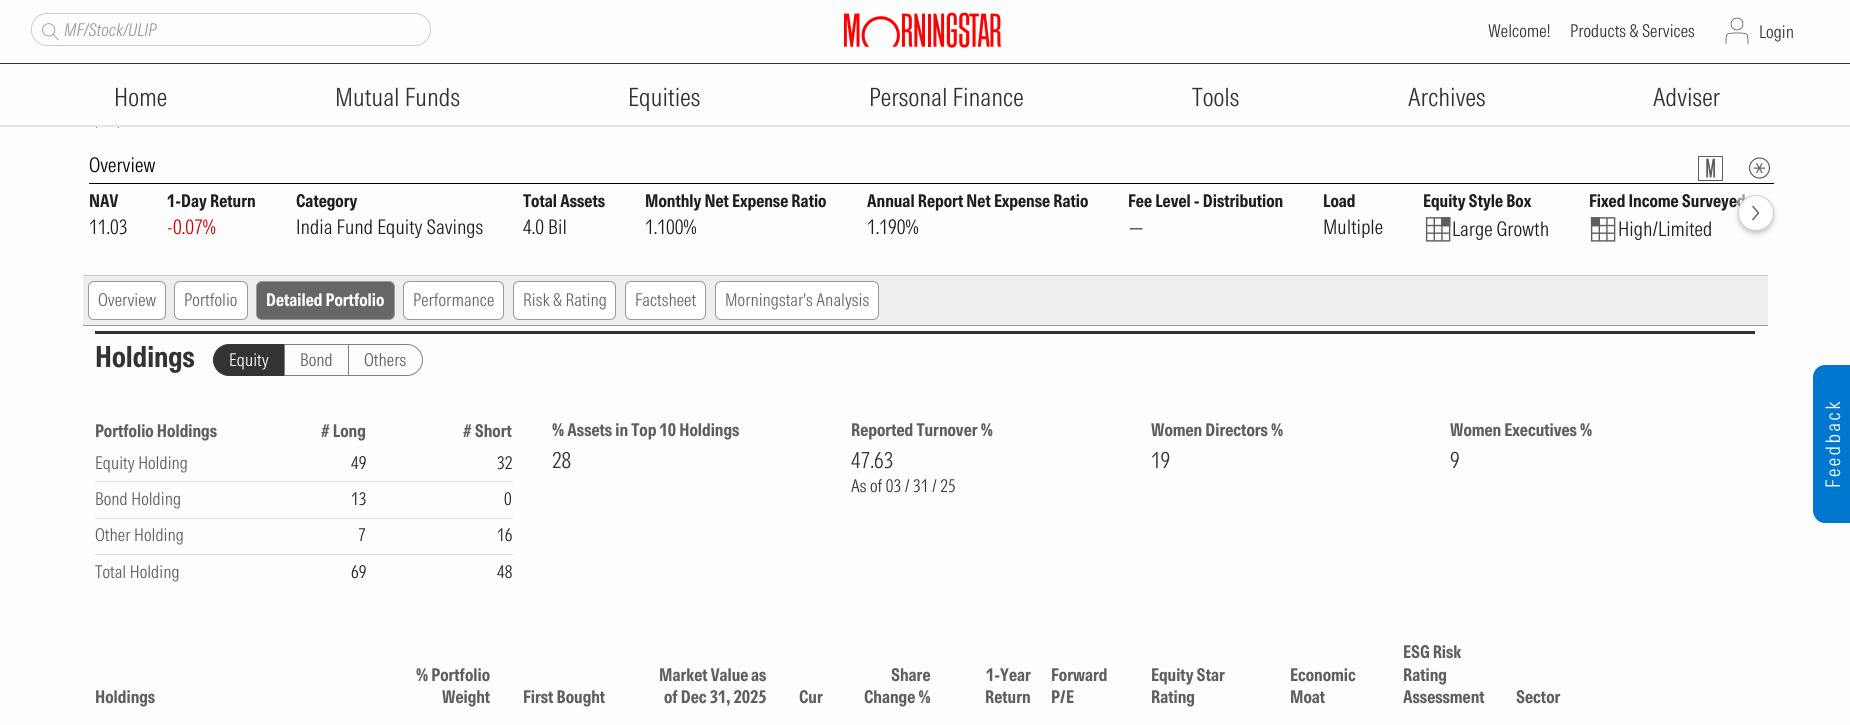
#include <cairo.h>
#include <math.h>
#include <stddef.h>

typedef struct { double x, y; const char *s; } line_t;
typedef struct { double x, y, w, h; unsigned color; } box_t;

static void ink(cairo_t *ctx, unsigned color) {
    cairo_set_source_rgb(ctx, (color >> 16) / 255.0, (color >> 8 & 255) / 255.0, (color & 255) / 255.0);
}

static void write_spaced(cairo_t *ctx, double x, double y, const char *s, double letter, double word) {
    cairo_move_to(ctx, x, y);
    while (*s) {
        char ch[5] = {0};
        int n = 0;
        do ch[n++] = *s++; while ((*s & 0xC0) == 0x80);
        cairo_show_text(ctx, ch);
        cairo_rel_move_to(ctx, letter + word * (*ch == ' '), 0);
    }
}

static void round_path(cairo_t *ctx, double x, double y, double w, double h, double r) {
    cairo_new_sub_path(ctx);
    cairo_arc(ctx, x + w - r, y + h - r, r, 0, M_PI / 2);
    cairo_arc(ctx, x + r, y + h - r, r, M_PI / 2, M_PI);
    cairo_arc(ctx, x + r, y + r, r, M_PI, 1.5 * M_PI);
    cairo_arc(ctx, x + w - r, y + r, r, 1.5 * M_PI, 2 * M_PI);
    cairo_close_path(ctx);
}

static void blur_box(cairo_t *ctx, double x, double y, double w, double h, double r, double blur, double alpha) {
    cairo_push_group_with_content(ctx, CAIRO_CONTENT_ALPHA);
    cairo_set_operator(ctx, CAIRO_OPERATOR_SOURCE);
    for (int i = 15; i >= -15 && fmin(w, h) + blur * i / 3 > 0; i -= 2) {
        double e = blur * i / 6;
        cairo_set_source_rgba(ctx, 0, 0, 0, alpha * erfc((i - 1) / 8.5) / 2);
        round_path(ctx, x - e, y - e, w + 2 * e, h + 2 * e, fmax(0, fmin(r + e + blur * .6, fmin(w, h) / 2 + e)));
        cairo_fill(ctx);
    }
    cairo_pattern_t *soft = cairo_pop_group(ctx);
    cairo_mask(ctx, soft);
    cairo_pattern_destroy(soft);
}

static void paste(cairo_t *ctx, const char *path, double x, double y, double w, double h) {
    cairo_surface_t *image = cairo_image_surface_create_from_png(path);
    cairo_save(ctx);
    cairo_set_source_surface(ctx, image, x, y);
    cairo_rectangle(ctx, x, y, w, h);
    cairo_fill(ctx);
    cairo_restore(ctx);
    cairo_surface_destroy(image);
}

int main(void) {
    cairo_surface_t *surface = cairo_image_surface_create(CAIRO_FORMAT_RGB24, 1850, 725);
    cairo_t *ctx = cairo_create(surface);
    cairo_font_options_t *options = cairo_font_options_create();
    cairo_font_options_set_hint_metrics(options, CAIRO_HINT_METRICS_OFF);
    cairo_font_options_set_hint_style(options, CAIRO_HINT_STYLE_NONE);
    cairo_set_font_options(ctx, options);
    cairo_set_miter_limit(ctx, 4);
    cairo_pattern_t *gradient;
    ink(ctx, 0xFDFDFD);
    cairo_paint(ctx);
    ink(ctx, 0x333333);
    cairo_rectangle(ctx, 0, 63, 1850, 1);
    cairo_fill(ctx);
    round_path(ctx, 31.5, 13.5, 399, 32, 15.5);
    ink(ctx, 0xCCCCCC);
    cairo_set_line_width(ctx, 1);
    cairo_stroke(ctx);
    paste(ctx, "media/1.png", 42, 23, 17, 18);
    cairo_select_font_face(ctx, "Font", CAIRO_FONT_SLANT_ITALIC, CAIRO_FONT_WEIGHT_NORMAL);
    cairo_set_font_size(ctx, 17.5);
    ink(ctx, 0x999999);
    cairo_move_to(ctx, 64, 36);
    cairo_show_text(ctx, "MF/Stock/ULIP");
    paste(ctx, "media/2.png", 844, 12, 157, 36);
    cairo_select_font_face(ctx, "Font", CAIRO_FONT_SLANT_NORMAL, CAIRO_FONT_WEIGHT_NORMAL);
    ink(ctx, 0x333333);
    cairo_move_to(ctx, 1488, 37);
    cairo_show_text(ctx, "Welcome!");
    cairo_move_to(ctx, 1570, 37);
    cairo_show_text(ctx, "Products & Services");
    cairo_new_path(ctx);
    cairo_arc(ctx, 1737, 24, 6, 0, 2 * M_PI);
    ink(ctx, 0x000000);
    cairo_set_line_width(ctx, 0.5);
    cairo_stroke(ctx);
    cairo_new_path(ctx);
    cairo_move_to(ctx, 1748, 44);
    cairo_curve_to(ctx, 1748, 33, 1748.5, 33, 1737, 33);
    cairo_curve_to(ctx, 1725.5, 33, 1726, 33, 1726, 44);
    cairo_stroke(ctx);
    ink(ctx, 0x333333);
    cairo_move_to(ctx, 1759, 38);
    cairo_show_text(ctx, "Login");
    ink(ctx, 0x000000);
    cairo_new_path(ctx);
    cairo_move_to(ctx, 114.5, 114);
    cairo_line_to(ctx, 119, 128);
    cairo_line_to(ctx, 107.5, 119.5);
    cairo_line_to(ctx, 96, 128);
    cairo_line_to(ctx, 100.5, 114);
    cairo_line_to(ctx, 89, 105.5);
    cairo_line_to(ctx, 103, 105.5);
    cairo_line_to(ctx, 107.5, 92);
    cairo_line_to(ctx, 112, 105.5);
    cairo_line_to(ctx, 126, 105.5);
    cairo_close_path(ctx);
    cairo_fill(ctx);
    ink(ctx, 0xFDFDFD);
    cairo_rectangle(ctx, 89, 92, 37, 33);
    cairo_fill(ctx);
    ink(ctx, 0xE5E5E5);
    cairo_rectangle(ctx, 0, 125, 1850, 2);
    cairo_fill(ctx);
    cairo_set_font_size(ctx, 25);
    ink(ctx, 0x333333);
    {
        static const line_t items[] = {
            {114, 106, "Home"},
            {335, 106, "Mutual Funds"},
            {628, 106, "Equities"},
            {869, 106, "Personal Finance"},
            {1192, 106, "Tools"},
            {1408, 106, "Archives"},
            {1653, 106, "Adviser"},
        };
        for (size_t i = 0; i < sizeof items / sizeof *items; i++) {
            cairo_move_to(ctx, items[i].x, items[i].y);
            cairo_show_text(ctx, items[i].s);
        }
    }
    cairo_set_font_size(ctx, 20);
    ink(ctx, 0x000000);
    cairo_move_to(ctx, 89, 172);
    cairo_show_text(ctx, "Overview");
    paste(ctx, "media/3.png", 1698, 156, 25, 25);
    paste(ctx, "media/4.png", 1748, 157, 23, 22);
    cairo_rectangle(ctx, 89, 183, 1685, 1);
    cairo_fill(ctx);
    cairo_select_font_face(ctx, "Font", CAIRO_FONT_SLANT_NORMAL, CAIRO_FONT_WEIGHT_BOLD);
    cairo_set_font_size(ctx, 17.5);
    ink(ctx, 0x1E1E1E);
    cairo_move_to(ctx, 89, 207);
    cairo_show_text(ctx, "NAV");
    cairo_select_font_face(ctx, "Font", CAIRO_FONT_SLANT_NORMAL, CAIRO_FONT_WEIGHT_NORMAL);
    cairo_set_font_size(ctx, 20);
    cairo_move_to(ctx, 89, 234);
    cairo_show_text(ctx, "11.03");
    cairo_select_font_face(ctx, "Font", CAIRO_FONT_SLANT_NORMAL, CAIRO_FONT_WEIGHT_BOLD);
    cairo_set_font_size(ctx, 17.5);
    cairo_move_to(ctx, 167, 207);
    cairo_show_text(ctx, "1-Day Return");
    cairo_select_font_face(ctx, "Font", CAIRO_FONT_SLANT_NORMAL, CAIRO_FONT_WEIGHT_NORMAL);
    cairo_set_font_size(ctx, 20);
    ink(ctx, 0xCA0000);
    cairo_move_to(ctx, 167, 234);
    cairo_show_text(ctx, "-0.07%");
    cairo_select_font_face(ctx, "Font", CAIRO_FONT_SLANT_NORMAL, CAIRO_FONT_WEIGHT_BOLD);
    cairo_set_font_size(ctx, 17.5);
    ink(ctx, 0x1E1E1E);
    cairo_move_to(ctx, 296, 207);
    cairo_show_text(ctx, "Category");
    cairo_select_font_face(ctx, "Font", CAIRO_FONT_SLANT_NORMAL, CAIRO_FONT_WEIGHT_NORMAL);
    cairo_set_font_size(ctx, 20);
    cairo_move_to(ctx, 296, 234);
    cairo_show_text(ctx, "India Fund Equity Savings");
    cairo_select_font_face(ctx, "Font", CAIRO_FONT_SLANT_NORMAL, CAIRO_FONT_WEIGHT_BOLD);
    cairo_set_font_size(ctx, 17.5);
    cairo_move_to(ctx, 523, 207);
    cairo_show_text(ctx, "Total Assets");
    cairo_select_font_face(ctx, "Font", CAIRO_FONT_SLANT_NORMAL, CAIRO_FONT_WEIGHT_NORMAL);
    cairo_set_font_size(ctx, 20);
    cairo_move_to(ctx, 523, 234);
    cairo_show_text(ctx, "4.0 Bil");
    cairo_select_font_face(ctx, "Font", CAIRO_FONT_SLANT_NORMAL, CAIRO_FONT_WEIGHT_BOLD);
    cairo_set_font_size(ctx, 17.5);
    cairo_move_to(ctx, 645, 207);
    cairo_show_text(ctx, "Monthly Net Expense Ratio");
    cairo_select_font_face(ctx, "Font", CAIRO_FONT_SLANT_NORMAL, CAIRO_FONT_WEIGHT_NORMAL);
    cairo_set_font_size(ctx, 20);
    cairo_move_to(ctx, 645, 234);
    cairo_show_text(ctx, "1.100%");
    cairo_select_font_face(ctx, "Font", CAIRO_FONT_SLANT_NORMAL, CAIRO_FONT_WEIGHT_BOLD);
    cairo_set_font_size(ctx, 17.5);
    cairo_move_to(ctx, 867, 207);
    cairo_show_text(ctx, "Annual Report Net Expense Ratio");
    cairo_select_font_face(ctx, "Font", CAIRO_FONT_SLANT_NORMAL, CAIRO_FONT_WEIGHT_NORMAL);
    cairo_set_font_size(ctx, 20);
    cairo_move_to(ctx, 867, 234);
    cairo_show_text(ctx, "1.190%");
    cairo_select_font_face(ctx, "Font", CAIRO_FONT_SLANT_NORMAL, CAIRO_FONT_WEIGHT_BOLD);
    cairo_set_font_size(ctx, 17.5);
    cairo_move_to(ctx, 1128, 207);
    cairo_show_text(ctx, "Fee Level - Distribution");
    cairo_select_font_face(ctx, "Font", CAIRO_FONT_SLANT_NORMAL, CAIRO_FONT_WEIGHT_NORMAL);
    cairo_set_font_size(ctx, 20);
    cairo_move_to(ctx, 1128, 234);
    cairo_show_text(ctx, "—");
    cairo_select_font_face(ctx, "Font", CAIRO_FONT_SLANT_NORMAL, CAIRO_FONT_WEIGHT_BOLD);
    cairo_set_font_size(ctx, 17.5);
    cairo_move_to(ctx, 1323, 207);
    cairo_show_text(ctx, "Load");
    cairo_select_font_face(ctx, "Font", CAIRO_FONT_SLANT_NORMAL, CAIRO_FONT_WEIGHT_NORMAL);
    cairo_set_font_size(ctx, 20);
    cairo_move_to(ctx, 1323, 234);
    cairo_show_text(ctx, "Multiple");
    cairo_select_font_face(ctx, "Font", CAIRO_FONT_SLANT_NORMAL, CAIRO_FONT_WEIGHT_BOLD);
    cairo_set_font_size(ctx, 17.5);
    cairo_move_to(ctx, 1423, 207);
    cairo_show_text(ctx, "Equity Style Box");
    paste(ctx, "media/5.png", 1425, 217, 26, 25);
    cairo_select_font_face(ctx, "Font", CAIRO_FONT_SLANT_NORMAL, CAIRO_FONT_WEIGHT_NORMAL);
    cairo_set_font_size(ctx, 20);
    cairo_move_to(ctx, 1452, 236);
    cairo_show_text(ctx, "Large Growth");
    cairo_select_font_face(ctx, "Font", CAIRO_FONT_SLANT_NORMAL, CAIRO_FONT_WEIGHT_BOLD);
    cairo_set_font_size(ctx, 17.5);
    cairo_move_to(ctx, 1589, 207);
    cairo_show_text(ctx, "Fixed Income Surveyed");
    paste(ctx, "media/6.png", 1590, 217, 26, 25);
    cairo_select_font_face(ctx, "Font", CAIRO_FONT_SLANT_NORMAL, CAIRO_FONT_WEIGHT_NORMAL);
    cairo_set_font_size(ctx, 20);
    cairo_move_to(ctx, 1618, 236);
    cairo_show_text(ctx, "High/Limited");
    gradient = cairo_pattern_create_linear(1738, 214, 1774, 214);
    cairo_pattern_add_color_stop_rgba(gradient, 0, 1, 1, 1, 0.5);
    cairo_pattern_add_color_stop_rgba(gradient, 1, 1, 1, 1, 0.85);
    cairo_set_source(ctx, gradient);
    cairo_pattern_destroy(gradient);
    cairo_rectangle(ctx, 1738, 194, 7, 14);
    cairo_fill(ctx);
    ink(ctx, 0x000000);
    blur_box(ctx, 1738, 198, 36, 36, 18, 2.5, 0.2);
    ink(ctx, 0xFFFFFF);
    cairo_arc(ctx, 1756, 213, 17.5, 0, 2 * M_PI);
    cairo_fill_preserve(ctx);
    ink(ctx, 0xCCCCCC);
    cairo_set_line_width(ctx, 1);
    cairo_stroke(ctx);
    cairo_new_path(ctx);
    cairo_move_to(ctx, 1752.5, 206);
    cairo_line_to(ctx, 1758.5, 213);
    cairo_line_to(ctx, 1752.5, 220);
    ink(ctx, 0x5E5E5E);
    cairo_set_line_width(ctx, 1.4);
    cairo_stroke(ctx);
    {
        static const box_t items[] = {
            {83, 276, 1685, 49, 0xEEEEEE},
            {83, 275, 1685, 1, 0xCCCCCC},
            {83, 325, 1685, 1, 0x999999},
        };
        for (size_t i = 0; i < sizeof items / sizeof *items; i++) {
            ink(ctx, items[i].color);
            cairo_rectangle(ctx, items[i].x, items[i].y, items[i].w, items[i].h);
            cairo_fill(ctx);
        }
    }
    ink(ctx, 0xFFFFFF);
    round_path(ctx, 88.5, 281.5, 77, 38, 5.5);
    cairo_fill_preserve(ctx);
    ink(ctx, 0x999999);
    cairo_set_line_width(ctx, 1);
    cairo_stroke(ctx);
    cairo_set_font_size(ctx, 17.5);
    ink(ctx, 0x666666);
    cairo_move_to(ctx, 98, 306);
    cairo_show_text(ctx, "Overview");
    ink(ctx, 0xFFFFFF);
    round_path(ctx, 174.5, 281.5, 73, 38, 5.5);
    cairo_fill_preserve(ctx);
    ink(ctx, 0x999999);
    cairo_stroke(ctx);
    ink(ctx, 0x666666);
    cairo_move_to(ctx, 184, 306);
    cairo_show_text(ctx, "Portfolio");
    round_path(ctx, 256.5, 281.5, 138, 38, 5.5);
    cairo_fill_preserve(ctx);
    ink(ctx, 0x999999);
    cairo_stroke(ctx);
    cairo_select_font_face(ctx, "Font", CAIRO_FONT_SLANT_NORMAL, CAIRO_FONT_WEIGHT_BOLD);
    ink(ctx, 0xFFFFFF);
    cairo_move_to(ctx, 266, 306);
    cairo_show_text(ctx, "Detailed Portfolio");
    round_path(ctx, 403.5, 281.5, 100, 38, 5.5);
    cairo_fill_preserve(ctx);
    ink(ctx, 0x999999);
    cairo_stroke(ctx);
    cairo_select_font_face(ctx, "Font", CAIRO_FONT_SLANT_NORMAL, CAIRO_FONT_WEIGHT_NORMAL);
    ink(ctx, 0x666666);
    cairo_move_to(ctx, 413, 306);
    cairo_show_text(ctx, "Performance");
    ink(ctx, 0xFFFFFF);
    round_path(ctx, 513.5, 281.5, 102, 38, 5.5);
    cairo_fill_preserve(ctx);
    ink(ctx, 0x999999);
    cairo_stroke(ctx);
    ink(ctx, 0x666666);
    cairo_move_to(ctx, 523, 306);
    cairo_show_text(ctx, "Risk & Rating");
    ink(ctx, 0xFFFFFF);
    round_path(ctx, 625.5, 281.5, 80, 38, 5.5);
    cairo_fill_preserve(ctx);
    ink(ctx, 0x999999);
    cairo_stroke(ctx);
    ink(ctx, 0x666666);
    cairo_move_to(ctx, 635, 306);
    cairo_show_text(ctx, "Factsheet");
    ink(ctx, 0xFFFFFF);
    round_path(ctx, 715.5, 281.5, 163, 38, 5.5);
    cairo_fill_preserve(ctx);
    ink(ctx, 0x999999);
    cairo_stroke(ctx);
    ink(ctx, 0x666666);
    cairo_move_to(ctx, 725, 306);
    cairo_show_text(ctx, "Morningstar's Analysis");
    ink(ctx, 0x333333);
    cairo_rectangle(ctx, 95, 331, 1660, 3);
    cairo_fill(ctx);
    cairo_select_font_face(ctx, "Font", CAIRO_FONT_SLANT_NORMAL, CAIRO_FONT_WEIGHT_BOLD);
    cairo_set_font_size(ctx, 29);
    cairo_move_to(ctx, 95, 367);
    cairo_show_text(ctx, "Holdings");
    cairo_new_path(ctx);
    cairo_move_to(ctx, 229, 344.5);
    cairo_line_to(ctx, 284.5, 344.5);
    cairo_line_to(ctx, 284.5, 375.5);
    cairo_line_to(ctx, 229, 375.5);
    cairo_curve_to(ctx, 220.5, 375.5, 213.5, 368.5, 213.5, 360);
    cairo_curve_to(ctx, 213.5, 351.5, 220.5, 344.5, 229, 344.5);
    cairo_close_path(ctx);
    cairo_fill_preserve(ctx);
    cairo_stroke(ctx);
    cairo_select_font_face(ctx, "Font", CAIRO_FONT_SLANT_NORMAL, CAIRO_FONT_WEIGHT_NORMAL);
    cairo_set_font_size(ctx, 17.5);
    ink(ctx, 0xFFFFFF);
    cairo_move_to(ctx, 229, 366);
    cairo_show_text(ctx, "Equity");
    cairo_rectangle(ctx, 284.5, 344.5, 64, 31);
    ink(ctx, 0x808080);
    cairo_stroke(ctx);
    ink(ctx, 0x5E5E5E);
    cairo_move_to(ctx, 300, 366);
    cairo_show_text(ctx, "Bond");
    cairo_new_path(ctx);
    cairo_move_to(ctx, 348.5, 344.5);
    cairo_line_to(ctx, 407, 344.5);
    cairo_curve_to(ctx, 415.5, 344.5, 422.5, 351.5, 422.5, 360);
    cairo_curve_to(ctx, 422.5, 368.5, 415.5, 375.5, 407, 375.5);
    cairo_line_to(ctx, 348.5, 375.5);
    cairo_close_path(ctx);
    ink(ctx, 0x808080);
    cairo_stroke(ctx);
    ink(ctx, 0x5E5E5E);
    cairo_move_to(ctx, 364, 366);
    cairo_show_text(ctx, "Others");
    cairo_select_font_face(ctx, "Font", CAIRO_FONT_SLANT_NORMAL, CAIRO_FONT_WEIGHT_BOLD);
    {
        static const line_t items[] = {
            {95, 437, "Portfolio Holdings"},
            {321, 437, "# Long"},
            {463, 437, "# Short"},
        };
        for (size_t i = 0; i < sizeof items / sizeof *items; i++) {
            cairo_move_to(ctx, items[i].x, items[i].y);
            cairo_show_text(ctx, items[i].s);
        }
    }
    cairo_select_font_face(ctx, "Font", CAIRO_FONT_SLANT_NORMAL, CAIRO_FONT_WEIGHT_NORMAL);
    cairo_move_to(ctx, 95, 469);
    cairo_show_text(ctx, "Equity Holding");
    ink(ctx, 0xE0E0E0);
    cairo_rectangle(ctx, 95, 481, 418, 1);
    cairo_fill(ctx);
    ink(ctx, 0x1E1E1E);
    cairo_move_to(ctx, 351, 469);
    cairo_show_text(ctx, "49");
    cairo_move_to(ctx, 497, 469);
    cairo_show_text(ctx, "32");
    ink(ctx, 0x5E5E5E);
    cairo_move_to(ctx, 95, 505);
    cairo_show_text(ctx, "Bond Holding");
    ink(ctx, 0xE0E0E0);
    cairo_rectangle(ctx, 95, 518, 418, 1);
    cairo_fill(ctx);
    ink(ctx, 0x1E1E1E);
    cairo_move_to(ctx, 351, 505);
    cairo_show_text(ctx, "13");
    cairo_move_to(ctx, 504, 505);
    cairo_show_text(ctx, "0");
    ink(ctx, 0x5E5E5E);
    cairo_move_to(ctx, 95, 541);
    cairo_show_text(ctx, "Other Holding");
    ink(ctx, 0xE0E0E0);
    cairo_rectangle(ctx, 95, 554, 418, 1);
    cairo_fill(ctx);
    ink(ctx, 0x1E1E1E);
    cairo_move_to(ctx, 358, 541);
    cairo_show_text(ctx, "7");
    cairo_move_to(ctx, 497, 541);
    cairo_show_text(ctx, "16");
    ink(ctx, 0x5E5E5E);
    cairo_move_to(ctx, 95, 578);
    cairo_show_text(ctx, "Total Holding");
    ink(ctx, 0x1E1E1E);
    cairo_move_to(ctx, 351, 578);
    cairo_show_text(ctx, "69");
    cairo_move_to(ctx, 497, 578);
    cairo_show_text(ctx, "48");
    cairo_select_font_face(ctx, "Font", CAIRO_FONT_SLANT_NORMAL, CAIRO_FONT_WEIGHT_BOLD);
    ink(ctx, 0x5E5E5E);
    cairo_move_to(ctx, 552, 436);
    cairo_show_text(ctx, "% Assets in Top 10 Holdings");
    cairo_select_font_face(ctx, "Font", CAIRO_FONT_SLANT_NORMAL, CAIRO_FONT_WEIGHT_NORMAL);
    cairo_set_font_size(ctx, 22);
    ink(ctx, 0x333333);
    cairo_move_to(ctx, 552, 468);
    cairo_show_text(ctx, "28");
    cairo_select_font_face(ctx, "Font", CAIRO_FONT_SLANT_NORMAL, CAIRO_FONT_WEIGHT_BOLD);
    cairo_set_font_size(ctx, 17.5);
    ink(ctx, 0x5E5E5E);
    cairo_move_to(ctx, 851, 436);
    cairo_show_text(ctx, "Reported Turnover %");
    cairo_select_font_face(ctx, "Font", CAIRO_FONT_SLANT_NORMAL, CAIRO_FONT_WEIGHT_NORMAL);
    cairo_set_font_size(ctx, 22);
    ink(ctx, 0x333333);
    cairo_move_to(ctx, 851, 468);
    cairo_show_text(ctx, "47.63");
    cairo_set_font_size(ctx, 17.5);
    cairo_move_to(ctx, 851, 492);
    cairo_show_text(ctx, "As of 03 / 31 / 25");
    cairo_select_font_face(ctx, "Font", CAIRO_FONT_SLANT_NORMAL, CAIRO_FONT_WEIGHT_BOLD);
    ink(ctx, 0x5E5E5E);
    cairo_move_to(ctx, 1151, 436);
    cairo_show_text(ctx, "Women Directors %");
    cairo_select_font_face(ctx, "Font", CAIRO_FONT_SLANT_NORMAL, CAIRO_FONT_WEIGHT_NORMAL);
    cairo_set_font_size(ctx, 22);
    ink(ctx, 0x333333);
    cairo_move_to(ctx, 1151, 468);
    cairo_show_text(ctx, "19");
    cairo_select_font_face(ctx, "Font", CAIRO_FONT_SLANT_NORMAL, CAIRO_FONT_WEIGHT_BOLD);
    cairo_set_font_size(ctx, 17.5);
    ink(ctx, 0x5E5E5E);
    cairo_move_to(ctx, 1450, 436);
    cairo_show_text(ctx, "Women Executives %");
    cairo_select_font_face(ctx, "Font", CAIRO_FONT_SLANT_NORMAL, CAIRO_FONT_WEIGHT_NORMAL);
    cairo_set_font_size(ctx, 22);
    ink(ctx, 0x333333);
    cairo_move_to(ctx, 1450, 468);
    cairo_show_text(ctx, "9");
    cairo_select_font_face(ctx, "Font", CAIRO_FONT_SLANT_NORMAL, CAIRO_FONT_WEIGHT_BOLD);
    cairo_set_font_size(ctx, 17.5);
    ink(ctx, 0x5E5E5E);
    {
        static const line_t items[] = {
            {95, 703, "Holdings"},
            {416, 681, "% Portfolio"},
            {442, 703, "Weight"},
            {523, 703, "First Bought"},
            {659, 681, "Market Value"},
        };
        for (size_t i = 0; i < sizeof items / sizeof *items; i++) {
            cairo_move_to(ctx, items[i].x, items[i].y);
            cairo_show_text(ctx, items[i].s);
        }
    }
    cairo_save(ctx);
    cairo_rectangle(ctx, 649, 664, 117, 45);
    cairo_clip(ctx);
    cairo_move_to(ctx, 751, 681);
    cairo_show_text(ctx, "as");
    cairo_restore(ctx);
    {
        static const line_t items[] = {
            {664, 703, "of Dec 31, 2025"},
            {799, 703, "Cur"},
            {891, 681, "Share"},
            {864, 703, "Change %"},
            {986, 681, "1-Year"},
            {985, 703, "Return"},
            {1051, 681, "Forward"},
            {1051, 703, "P/E"},
            {1151, 681, "Equity Star"},
            {1151, 703, "Rating"},
            {1290, 681, "Economic"},
            {1290, 703, "Moat"},
            {1403, 658, "ESG Risk"},
            {1403, 681, "Rating"},
            {1403, 703, "Assessment"},
            {1516, 703, "Sector"},
        };
        for (size_t i = 0; i < sizeof items / sizeof *items; i++) {
            cairo_move_to(ctx, items[i].x, items[i].y);
            cairo_show_text(ctx, items[i].s);
        }
    }
    ink(ctx, 0x0077CF);
    cairo_new_path(ctx);
    cairo_move_to(ctx, 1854, 523);
    cairo_line_to(ctx, 1825, 523);
    cairo_curve_to(ctx, 1818, 523, 1813, 517, 1813, 510);
    cairo_line_to(ctx, 1813, 377);
    cairo_curve_to(ctx, 1813, 371, 1818, 365, 1825, 365);
    cairo_line_to(ctx, 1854, 365);
    cairo_close_path(ctx);
    cairo_fill(ctx);
    cairo_select_font_face(ctx, "Font", CAIRO_FONT_SLANT_NORMAL, CAIRO_FONT_WEIGHT_NORMAL);
    cairo_set_font_size(ctx, 20);
    ink(ctx, 0xFFFFFF);
    cairo_save(ctx);
    cairo_translate(ctx, 1840, 488);
    cairo_rotate(ctx, -90 * M_PI / 180);
    write_spaced(ctx, 0, 0, "Feedback", 2.5, 0);
    cairo_restore(ctx);
    cairo_surface_write_to_png(surface, "image.png");
    cairo_font_options_destroy(options);
    cairo_destroy(ctx);
    cairo_surface_destroy(surface);
    return 0;
}
